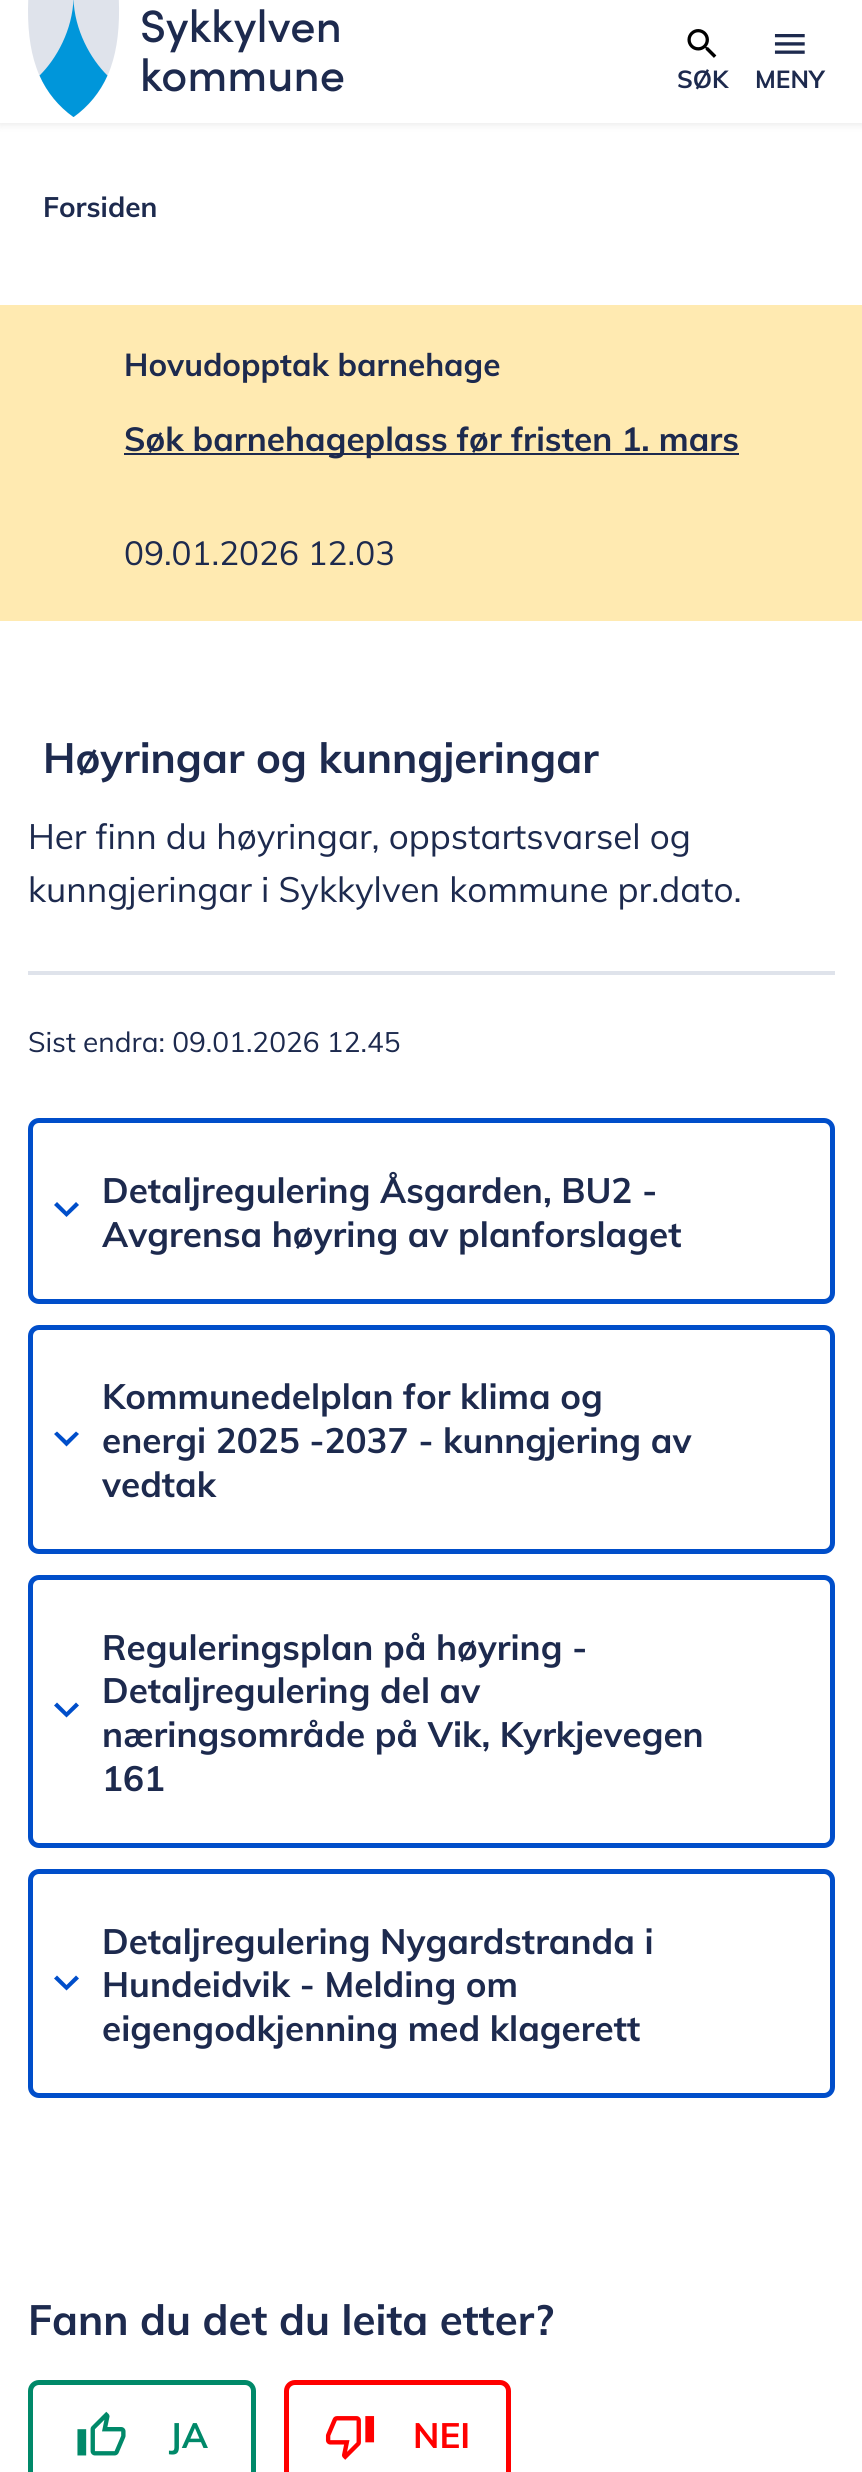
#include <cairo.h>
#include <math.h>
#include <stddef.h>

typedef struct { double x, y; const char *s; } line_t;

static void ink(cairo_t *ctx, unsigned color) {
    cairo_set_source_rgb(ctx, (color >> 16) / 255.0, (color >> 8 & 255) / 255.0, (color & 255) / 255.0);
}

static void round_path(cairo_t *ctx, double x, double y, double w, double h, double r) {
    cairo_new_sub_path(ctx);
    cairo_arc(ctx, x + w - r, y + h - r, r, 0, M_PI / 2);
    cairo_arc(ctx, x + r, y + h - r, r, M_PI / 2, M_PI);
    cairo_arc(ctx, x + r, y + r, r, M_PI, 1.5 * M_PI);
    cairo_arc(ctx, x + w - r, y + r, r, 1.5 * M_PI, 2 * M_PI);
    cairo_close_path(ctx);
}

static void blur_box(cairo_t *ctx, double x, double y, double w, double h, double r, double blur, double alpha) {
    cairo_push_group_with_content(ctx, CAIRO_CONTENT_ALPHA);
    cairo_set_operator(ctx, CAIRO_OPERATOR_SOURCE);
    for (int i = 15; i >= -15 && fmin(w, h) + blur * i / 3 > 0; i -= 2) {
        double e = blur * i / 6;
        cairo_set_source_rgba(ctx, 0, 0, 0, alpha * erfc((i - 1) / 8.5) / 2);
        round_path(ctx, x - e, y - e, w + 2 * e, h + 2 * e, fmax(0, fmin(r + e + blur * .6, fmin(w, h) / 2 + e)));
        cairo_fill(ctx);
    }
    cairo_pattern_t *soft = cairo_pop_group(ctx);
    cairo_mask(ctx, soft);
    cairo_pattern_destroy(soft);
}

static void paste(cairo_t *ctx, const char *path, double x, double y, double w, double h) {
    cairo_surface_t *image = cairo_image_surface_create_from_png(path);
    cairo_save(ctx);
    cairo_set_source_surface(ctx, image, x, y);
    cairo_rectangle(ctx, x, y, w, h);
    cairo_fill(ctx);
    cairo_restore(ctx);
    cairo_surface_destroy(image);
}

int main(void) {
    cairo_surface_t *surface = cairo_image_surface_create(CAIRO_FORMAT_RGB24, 862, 2472);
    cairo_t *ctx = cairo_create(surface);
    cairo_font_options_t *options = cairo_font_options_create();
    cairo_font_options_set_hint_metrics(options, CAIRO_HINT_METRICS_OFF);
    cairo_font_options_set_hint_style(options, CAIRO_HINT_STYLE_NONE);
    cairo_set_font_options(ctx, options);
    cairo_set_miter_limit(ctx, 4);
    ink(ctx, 0xFFFFFF);
    cairo_paint(ctx);
    ink(ctx, 0x000000);
    blur_box(ctx, 0, 2, 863, 122, 0, 4.5, 0.1);
    ink(ctx, 0xFFFFFF);
    cairo_rectangle(ctx, 0, 0, 862, 123);
    cairo_fill(ctx);
    paste(ctx, "media/1.png", 28, 0, 316, 117);
    paste(ctx, "media/2.png", 687, 29, 30, 29);
    cairo_select_font_face(ctx, "Muli", CAIRO_FONT_SLANT_NORMAL, CAIRO_FONT_WEIGHT_BOLD);
    cairo_set_font_size(ctx, 24.5);
    ink(ctx, 0x1D2A4E);
    cairo_move_to(ctx, 677, 88);
    cairo_show_text(ctx, "SØK");
    paste(ctx, "media/3.png", 774, 34, 31, 20);
    cairo_move_to(ctx, 755, 88);
    cairo_show_text(ctx, "MENY");
    cairo_set_font_size(ctx, 28);
    cairo_move_to(ctx, 43, 217);
    cairo_show_text(ctx, "Forsiden");
    ink(ctx, 0xFFEAB1);
    cairo_rectangle(ctx, 0, 305, 862, 316);
    cairo_fill(ctx);
    cairo_set_font_size(ctx, 31.5);
    ink(ctx, 0x1D2A4E);
    cairo_move_to(ctx, 124, 376);
    cairo_show_text(ctx, "Hovudopptak barnehage");
    cairo_rectangle(ctx, 124, 453, 615, 2);
    cairo_fill(ctx);
    cairo_set_font_size(ctx, 33.25);
    cairo_move_to(ctx, 124, 451);
    cairo_show_text(ctx, "Søk barnehageplass før fristen 1. mars");
    cairo_select_font_face(ctx, "Muli", CAIRO_FONT_SLANT_NORMAL, CAIRO_FONT_WEIGHT_NORMAL);
    cairo_move_to(ctx, 124, 565);
    cairo_show_text(ctx, "09.01.2026 12.03");
    cairo_select_font_face(ctx, "Muli", CAIRO_FONT_SLANT_NORMAL, CAIRO_FONT_WEIGHT_BOLD);
    cairo_set_font_size(ctx, 42);
    cairo_move_to(ctx, 43, 773);
    cairo_show_text(ctx, "Høyringar og kunngjeringar");
    cairo_select_font_face(ctx, "Muli", CAIRO_FONT_SLANT_NORMAL, CAIRO_FONT_WEIGHT_NORMAL);
    cairo_set_font_size(ctx, 35);
    cairo_move_to(ctx, 28, 849);
    cairo_show_text(ctx, "Her finn du høyringar, oppstartsvarsel og");
    cairo_move_to(ctx, 28, 902);
    cairo_show_text(ctx, "kunngjeringar i Sykkylven kommune pr.dato.");
    ink(ctx, 0xDFE3EB);
    cairo_rectangle(ctx, 28, 971, 807, 4);
    cairo_fill(ctx);
    cairo_set_font_size(ctx, 28);
    ink(ctx, 0x1D2A4E);
    cairo_move_to(ctx, 28, 1052);
    cairo_show_text(ctx, "Sist endra: 09.01.2026 12.45");
    round_path(ctx, 30.5, 1120.5, 802, 181, 8.5);
    ink(ctx, 0x004ECA);
    cairo_set_line_width(ctx, 5);
    cairo_stroke(ctx);
    cairo_new_path(ctx);
    cairo_move_to(ctx, 57, 1202);
    cairo_line_to(ctx, 66.5, 1211.5);
    cairo_line_to(ctx, 76, 1202);
    cairo_line_to(ctx, 79, 1205);
    cairo_line_to(ctx, 66.5, 1217);
    cairo_line_to(ctx, 54, 1205);
    cairo_close_path(ctx);
    cairo_fill(ctx);
    cairo_select_font_face(ctx, "Muli", CAIRO_FONT_SLANT_NORMAL, CAIRO_FONT_WEIGHT_BOLD);
    cairo_set_font_size(ctx, 35);
    ink(ctx, 0x1D2A4E);
    cairo_move_to(ctx, 102, 1203);
    cairo_show_text(ctx, "Detaljregulering Åsgarden, BU2 -");
    cairo_move_to(ctx, 102, 1247);
    cairo_show_text(ctx, "Avgrensa høyring av planforslaget");
    round_path(ctx, 30.5, 1327.5, 802, 224, 8.5);
    ink(ctx, 0x004ECA);
    cairo_stroke(ctx);
    cairo_new_path(ctx);
    cairo_move_to(ctx, 57, 1431.5);
    cairo_line_to(ctx, 66.5, 1440.5);
    cairo_line_to(ctx, 76, 1431.5);
    cairo_line_to(ctx, 79, 1434);
    cairo_line_to(ctx, 66.5, 1446.5);
    cairo_line_to(ctx, 54, 1434);
    cairo_close_path(ctx);
    cairo_fill(ctx);
    ink(ctx, 0x1D2A4E);
    {
        static const line_t items[] = {
            {102, 1409, "Kommunedelplan for klima og"},
            {102, 1453, "energi 2025 -2037 - kunngjering av"},
            {102, 1497, "vedtak"},
        };
        for (size_t i = 0; i < sizeof items / sizeof *items; i++) {
            cairo_move_to(ctx, items[i].x, items[i].y);
            cairo_show_text(ctx, items[i].s);
        }
    }
    round_path(ctx, 30.5, 1577.5, 802, 268, 8.5);
    ink(ctx, 0x004ECA);
    cairo_stroke(ctx);
    cairo_new_path(ctx);
    cairo_move_to(ctx, 57, 1702.5);
    cairo_line_to(ctx, 66.5, 1712);
    cairo_line_to(ctx, 76, 1702.5);
    cairo_line_to(ctx, 79, 1705.5);
    cairo_line_to(ctx, 66.5, 1717.5);
    cairo_line_to(ctx, 54, 1705.5);
    cairo_close_path(ctx);
    cairo_fill(ctx);
    ink(ctx, 0x1D2A4E);
    {
        static const line_t items[] = {
            {102, 1660, "Reguleringsplan på høyring -"},
            {102, 1703, "Detaljregulering del av"},
            {102, 1747, "næringsområde på Vik, Kyrkjevegen"},
            {102, 1791, "161"},
        };
        for (size_t i = 0; i < sizeof items / sizeof *items; i++) {
            cairo_move_to(ctx, items[i].x, items[i].y);
            cairo_show_text(ctx, items[i].s);
        }
    }
    round_path(ctx, 30.5, 1871.5, 802, 224, 8.5);
    ink(ctx, 0x004ECA);
    cairo_stroke(ctx);
    cairo_new_path(ctx);
    cairo_move_to(ctx, 57, 1975.5);
    cairo_line_to(ctx, 66.5, 1985);
    cairo_line_to(ctx, 76, 1975.5);
    cairo_line_to(ctx, 79, 1978.5);
    cairo_line_to(ctx, 66.5, 1990.5);
    cairo_line_to(ctx, 54, 1978.5);
    cairo_close_path(ctx);
    cairo_fill(ctx);
    ink(ctx, 0x1D2A4E);
    {
        static const line_t items[] = {
            {102, 1954, "Detaljregulering Nygardstranda i"},
            {102, 1997, "Hundeidvik - Melding om"},
            {102, 2041, "eigengodkjenning med klagerett"},
        };
        for (size_t i = 0; i < sizeof items / sizeof *items; i++) {
            cairo_move_to(ctx, items[i].x, items[i].y);
            cairo_show_text(ctx, items[i].s);
        }
    }
    cairo_set_font_size(ctx, 42);
    cairo_move_to(ctx, 28, 2335);
    cairo_show_text(ctx, "Fann du det du leita etter?");
    round_path(ctx, 30.5, 2382.5, 223, 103, 8.5);
    ink(ctx, 0x008969);
    cairo_stroke(ctx);
    paste(ctx, "media/4.png", 77, 2411, 49, 45);
    cairo_set_font_size(ctx, 35);
    cairo_move_to(ctx, 169, 2448);
    cairo_show_text(ctx, "JA");
    round_path(ctx, 286.5, 2382.5, 222, 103, 8.5);
    ink(ctx, 0xFF0000);
    cairo_stroke(ctx);
    paste(ctx, "media/5.png", 325, 2416, 50, 44);
    cairo_move_to(ctx, 413, 2448);
    cairo_show_text(ctx, "NEI");
    cairo_surface_write_to_png(surface, "image.png");
    cairo_font_options_destroy(options);
    cairo_destroy(ctx);
    cairo_surface_destroy(surface);
    return 0;
}
